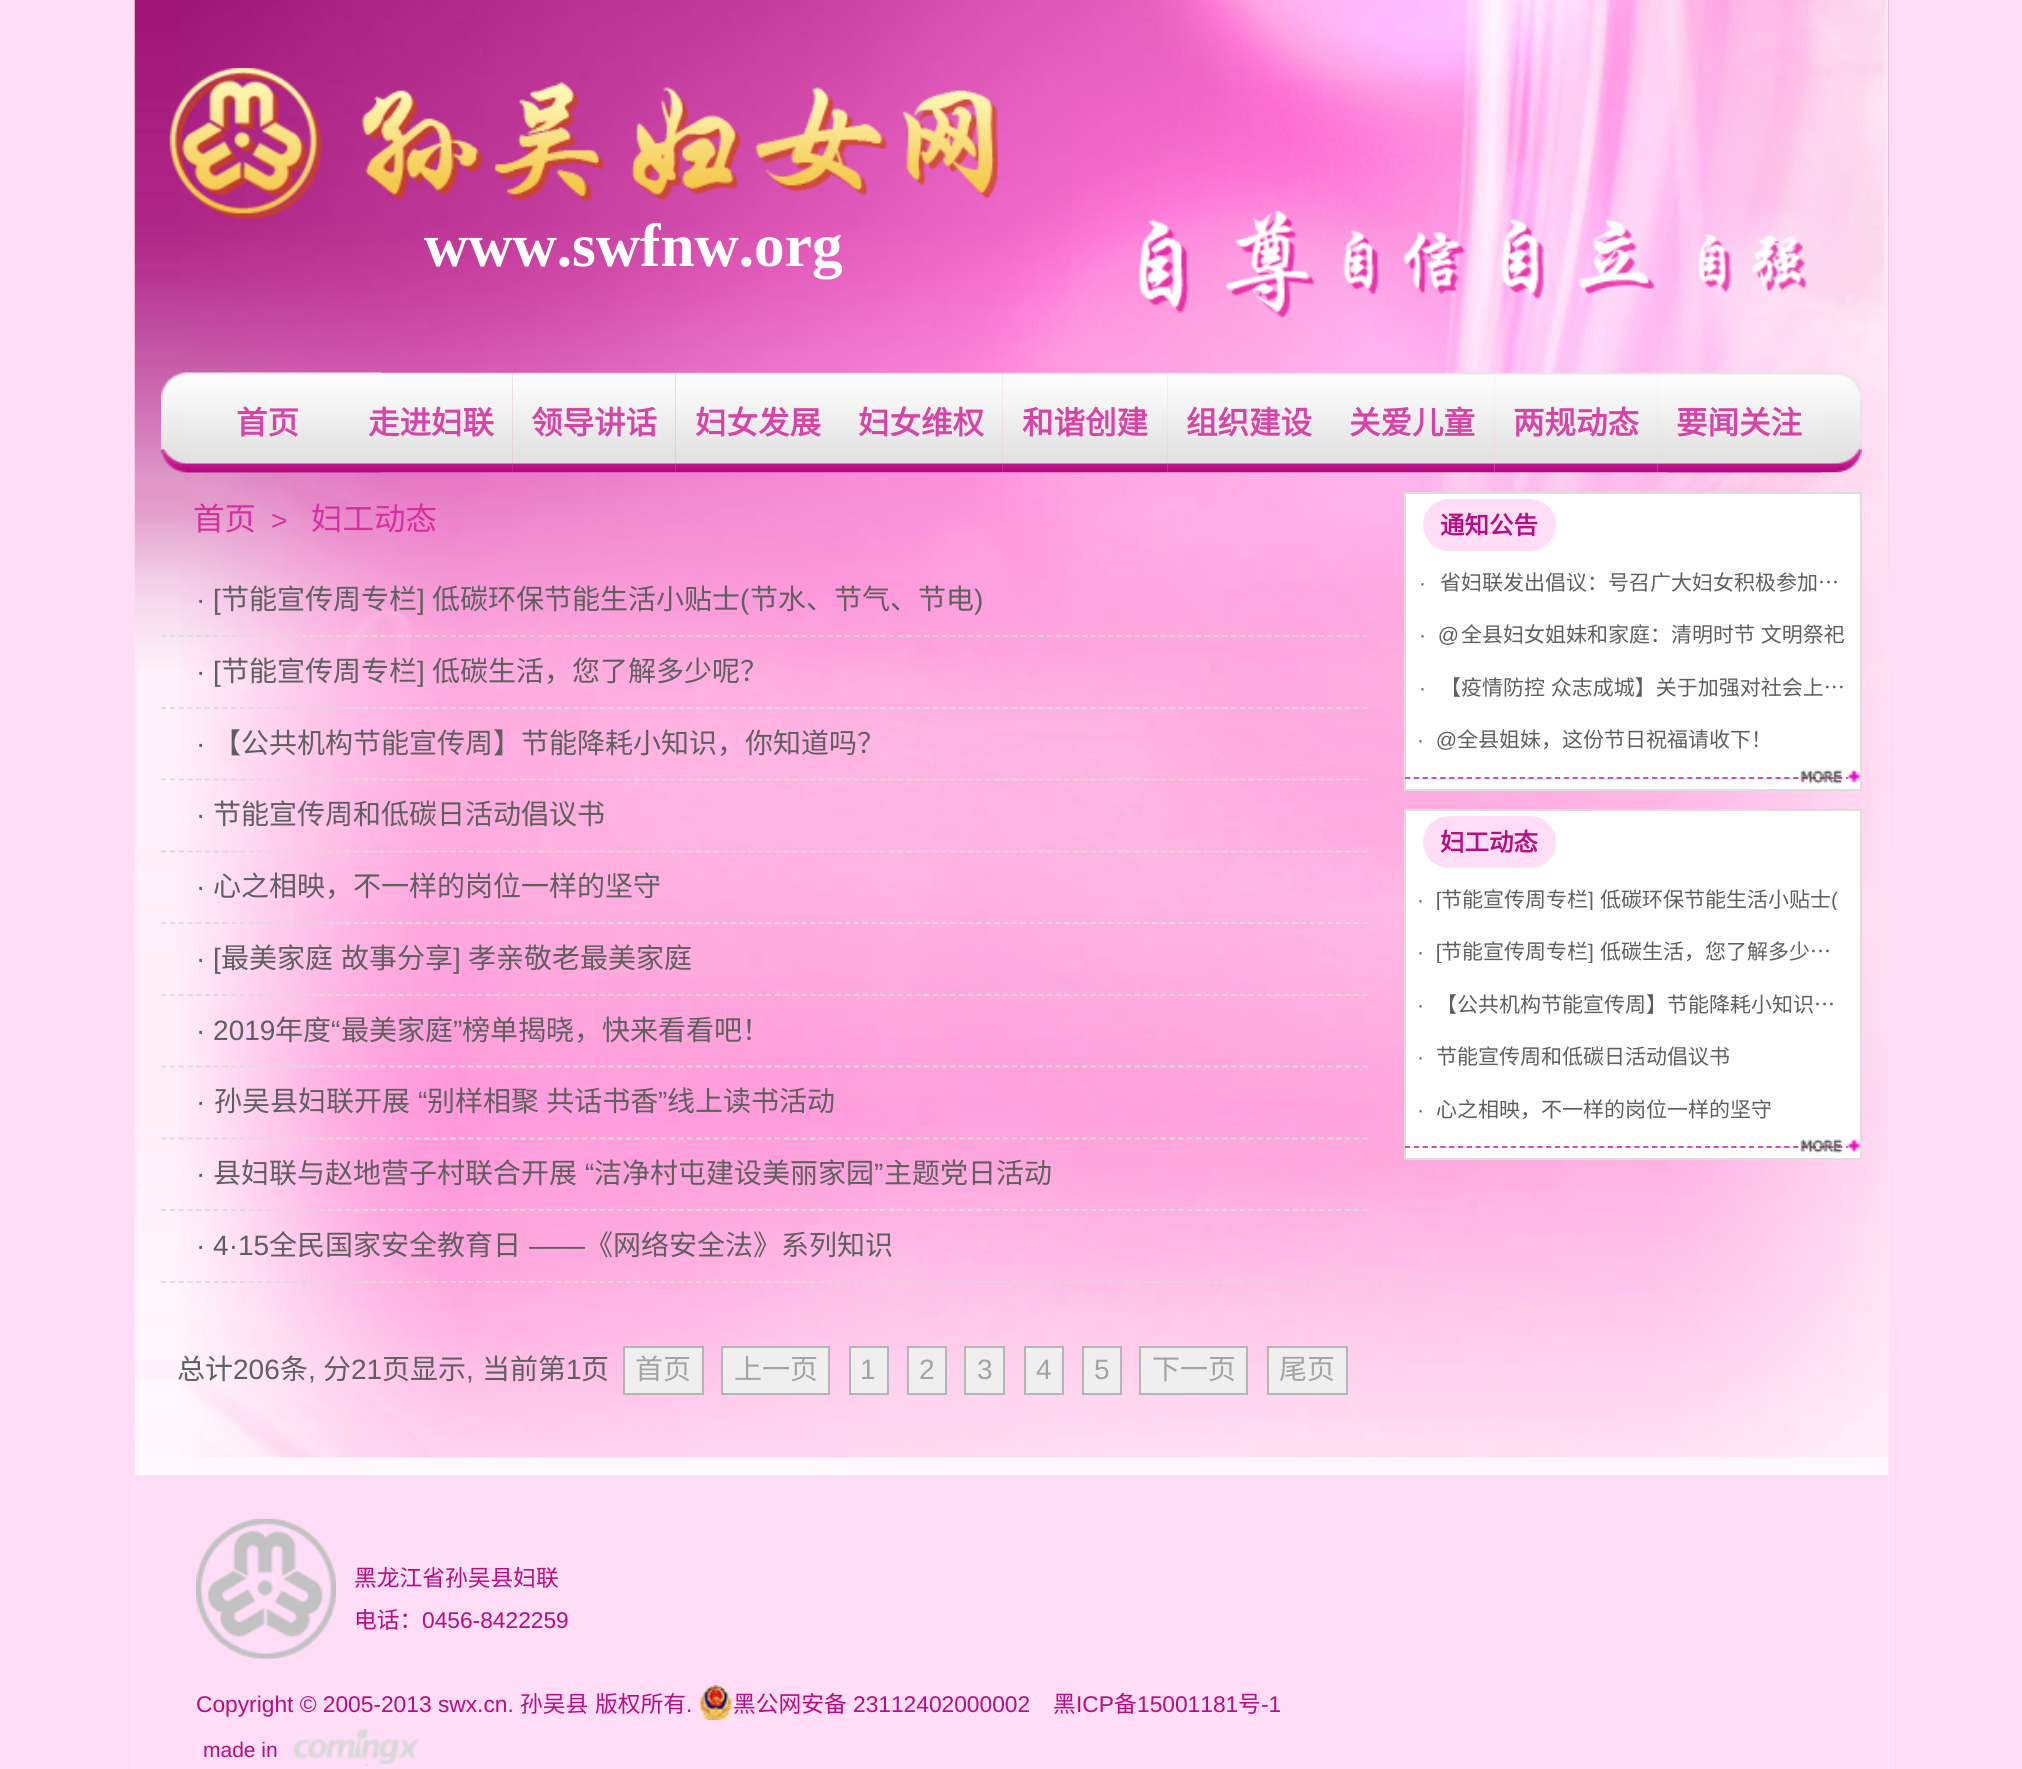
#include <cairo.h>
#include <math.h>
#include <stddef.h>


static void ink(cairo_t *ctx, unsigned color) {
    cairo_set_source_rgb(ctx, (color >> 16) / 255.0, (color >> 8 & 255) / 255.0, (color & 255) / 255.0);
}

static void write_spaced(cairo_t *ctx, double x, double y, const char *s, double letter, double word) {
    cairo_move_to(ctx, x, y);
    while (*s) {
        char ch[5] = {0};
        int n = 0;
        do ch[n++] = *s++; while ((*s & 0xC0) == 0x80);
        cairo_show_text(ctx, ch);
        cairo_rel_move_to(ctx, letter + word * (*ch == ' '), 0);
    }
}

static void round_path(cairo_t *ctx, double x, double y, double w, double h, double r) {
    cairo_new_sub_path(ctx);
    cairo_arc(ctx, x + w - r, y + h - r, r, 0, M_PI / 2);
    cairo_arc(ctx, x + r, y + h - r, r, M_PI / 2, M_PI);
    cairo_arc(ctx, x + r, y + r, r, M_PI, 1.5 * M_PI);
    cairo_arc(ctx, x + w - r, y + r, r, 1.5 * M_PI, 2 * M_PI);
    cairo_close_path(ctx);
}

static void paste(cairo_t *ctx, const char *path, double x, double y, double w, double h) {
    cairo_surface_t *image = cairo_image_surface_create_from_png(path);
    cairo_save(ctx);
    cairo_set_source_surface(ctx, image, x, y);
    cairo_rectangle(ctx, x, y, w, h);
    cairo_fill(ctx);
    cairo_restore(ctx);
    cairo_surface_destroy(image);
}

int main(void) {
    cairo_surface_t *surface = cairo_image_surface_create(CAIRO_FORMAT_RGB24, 2022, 1769);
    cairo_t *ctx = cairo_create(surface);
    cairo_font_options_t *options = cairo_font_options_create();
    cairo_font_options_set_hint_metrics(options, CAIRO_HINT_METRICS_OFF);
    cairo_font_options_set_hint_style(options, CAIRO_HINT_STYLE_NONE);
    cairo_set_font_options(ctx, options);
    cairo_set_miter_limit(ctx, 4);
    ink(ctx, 0xFFDDF6);
    cairo_paint(ctx);
    paste(ctx, "media/1.png", 134, 0, 1755, 1769);
    paste(ctx, "media/2.png", 179, 0, 1710, 1458);
    paste(ctx, "media/3.png", 169, 68, 830, 151);
    cairo_select_font_face(ctx, "Liberation Serif", CAIRO_FONT_SLANT_NORMAL, CAIRO_FONT_WEIGHT_BOLD);
    cairo_set_font_size(ctx, 61.25);
    ink(ctx, 0xFFFFFF);
    cairo_move_to(ctx, 424, 266);
    cairo_show_text(ctx, "www.swfnw.org");
    paste(ctx, "media/4.png", 1667, 372, 195, 101);
    paste(ctx, "media/5.png", 161, 372, 221, 101);
    paste(ctx, "media/6.png", 185, 372, 164, 101);
    cairo_select_font_face(ctx, "Noto Sans CJK SC", CAIRO_FONT_SLANT_NORMAL, CAIRO_FONT_WEIGHT_BOLD);
    cairo_set_font_size(ctx, 31.5);
    ink(ctx, 0xD744A7);
    cairo_move_to(ctx, 236, 434);
    cairo_show_text(ctx, "首页");
    paste(ctx, "media/7.png", 348, 372, 165, 101);
    cairo_move_to(ctx, 368, 434);
    cairo_show_text(ctx, "走进妇联");
    paste(ctx, "media/8.png", 512, 372, 164, 101);
    cairo_move_to(ctx, 531, 434);
    cairo_show_text(ctx, "领导讲话");
    paste(ctx, "media/9.png", 675, 372, 165, 101);
    cairo_move_to(ctx, 695, 434);
    cairo_show_text(ctx, "妇女发展");
    paste(ctx, "media/10.png", 840, 372, 163, 101);
    cairo_move_to(ctx, 858, 434);
    cairo_show_text(ctx, "妇女维权");
    paste(ctx, "media/11.png", 1002, 372, 166, 101);
    cairo_move_to(ctx, 1022, 434);
    cairo_show_text(ctx, "和谐创建");
    paste(ctx, "media/12.png", 1167, 372, 163, 101);
    cairo_move_to(ctx, 1186, 434);
    cairo_show_text(ctx, "组织建设");
    paste(ctx, "media/13.png", 1330, 372, 165, 101);
    cairo_move_to(ctx, 1349, 434);
    cairo_show_text(ctx, "关爱儿童");
    paste(ctx, "media/14.png", 1494, 372, 164, 101);
    cairo_move_to(ctx, 1513, 434);
    cairo_show_text(ctx, "两规动态");
    paste(ctx, "media/15.png", 1657, 372, 165, 101);
    cairo_move_to(ctx, 1676, 434);
    cairo_show_text(ctx, "要闻关注");
    cairo_select_font_face(ctx, "Noto Sans CJK SC", CAIRO_FONT_SLANT_NORMAL, CAIRO_FONT_WEIGHT_NORMAL);
    ink(ctx, 0xD3329E);
    cairo_move_to(ctx, 193, 530);
    cairo_show_text(ctx, "首页");
    cairo_select_font_face(ctx, "Liberation Sans", CAIRO_FONT_SLANT_NORMAL, CAIRO_FONT_WEIGHT_NORMAL);
    cairo_set_font_size(ctx, 28);
    cairo_move_to(ctx, 271, 530);
    cairo_show_text(ctx, ">");
    cairo_select_font_face(ctx, "Noto Sans CJK SC", CAIRO_FONT_SLANT_NORMAL, CAIRO_FONT_WEIGHT_NORMAL);
    cairo_set_font_size(ctx, 31.5);
    cairo_move_to(ctx, 311, 530);
    cairo_show_text(ctx, "妇工动态");
    cairo_new_path(ctx);
    cairo_move_to(ctx, 161, 636);
    cairo_line_to(ctx, 1368.5, 636);
    ink(ctx, 0xDCDCDC);
    cairo_set_line_width(ctx, 1.8);
    cairo_set_dash(ctx, (double[]){5.25, 3.52}, 2, 0);
    cairo_stroke(ctx);
    cairo_select_font_face(ctx, "Liberation Sans", CAIRO_FONT_SLANT_NORMAL, CAIRO_FONT_WEIGHT_NORMAL);
    cairo_set_font_size(ctx, 28);
    ink(ctx, 0x5F5F5F);
    cairo_move_to(ctx, 196, 609);
    cairo_show_text(ctx, "· [");
    cairo_select_font_face(ctx, "Noto Sans CJK SC", CAIRO_FONT_SLANT_NORMAL, CAIRO_FONT_WEIGHT_NORMAL);
    cairo_move_to(ctx, 221, 609);
    cairo_show_text(ctx, "节能宣传周专栏");
    cairo_select_font_face(ctx, "Liberation Sans", CAIRO_FONT_SLANT_NORMAL, CAIRO_FONT_WEIGHT_NORMAL);
    cairo_move_to(ctx, 417, 609);
    cairo_show_text(ctx, "]");
    cairo_select_font_face(ctx, "Noto Sans CJK SC", CAIRO_FONT_SLANT_NORMAL, CAIRO_FONT_WEIGHT_NORMAL);
    cairo_move_to(ctx, 432, 609);
    cairo_show_text(ctx, "低碳环保节能生活小贴士");
    cairo_select_font_face(ctx, "Liberation Sans", CAIRO_FONT_SLANT_NORMAL, CAIRO_FONT_WEIGHT_NORMAL);
    cairo_move_to(ctx, 740, 609);
    cairo_show_text(ctx, "(");
    cairo_select_font_face(ctx, "Noto Sans CJK SC", CAIRO_FONT_SLANT_NORMAL, CAIRO_FONT_WEIGHT_NORMAL);
    cairo_move_to(ctx, 750, 609);
    cairo_show_text(ctx, "节水、节气、节电");
    cairo_select_font_face(ctx, "Liberation Sans", CAIRO_FONT_SLANT_NORMAL, CAIRO_FONT_WEIGHT_NORMAL);
    cairo_move_to(ctx, 974, 609);
    cairo_show_text(ctx, ")");
    cairo_new_path(ctx);
    cairo_move_to(ctx, 161, 708);
    cairo_line_to(ctx, 1368.5, 708);
    ink(ctx, 0xDCDCDC);
    cairo_stroke(ctx);
    ink(ctx, 0x5F5F5F);
    cairo_move_to(ctx, 196, 681);
    cairo_show_text(ctx, "· [");
    cairo_select_font_face(ctx, "Noto Sans CJK SC", CAIRO_FONT_SLANT_NORMAL, CAIRO_FONT_WEIGHT_NORMAL);
    cairo_move_to(ctx, 221, 681);
    cairo_show_text(ctx, "节能宣传周专栏");
    cairo_select_font_face(ctx, "Liberation Sans", CAIRO_FONT_SLANT_NORMAL, CAIRO_FONT_WEIGHT_NORMAL);
    cairo_move_to(ctx, 417, 681);
    cairo_show_text(ctx, "]");
    cairo_select_font_face(ctx, "Noto Sans CJK SC", CAIRO_FONT_SLANT_NORMAL, CAIRO_FONT_WEIGHT_NORMAL);
    cairo_move_to(ctx, 432, 681);
    cairo_show_text(ctx, "低碳生活，您了解多少呢？");
    cairo_new_path(ctx);
    cairo_move_to(ctx, 161, 779.5);
    cairo_line_to(ctx, 1368.5, 779.5);
    ink(ctx, 0xDCDCDC);
    cairo_stroke(ctx);
    cairo_select_font_face(ctx, "Liberation Sans", CAIRO_FONT_SLANT_NORMAL, CAIRO_FONT_WEIGHT_NORMAL);
    ink(ctx, 0x5F5F5F);
    cairo_move_to(ctx, 196, 753);
    cairo_show_text(ctx, "·");
    cairo_select_font_face(ctx, "Noto Sans CJK SC", CAIRO_FONT_SLANT_NORMAL, CAIRO_FONT_WEIGHT_NORMAL);
    cairo_move_to(ctx, 213, 753);
    cairo_show_text(ctx, "【公共机构节能宣传周】节能降耗小知识，你知道吗？");
    cairo_new_path(ctx);
    cairo_move_to(ctx, 161, 851.5);
    cairo_line_to(ctx, 1368.5, 851.5);
    ink(ctx, 0xDCDCDC);
    cairo_stroke(ctx);
    cairo_select_font_face(ctx, "Liberation Sans", CAIRO_FONT_SLANT_NORMAL, CAIRO_FONT_WEIGHT_NORMAL);
    ink(ctx, 0x5F5F5F);
    cairo_move_to(ctx, 196, 824);
    cairo_show_text(ctx, "·");
    cairo_select_font_face(ctx, "Noto Sans CJK SC", CAIRO_FONT_SLANT_NORMAL, CAIRO_FONT_WEIGHT_NORMAL);
    cairo_move_to(ctx, 213, 824);
    cairo_show_text(ctx, "节能宣传周和低碳日活动倡议书");
    cairo_new_path(ctx);
    cairo_move_to(ctx, 161, 923);
    cairo_line_to(ctx, 1368.5, 923);
    ink(ctx, 0xDCDCDC);
    cairo_stroke(ctx);
    cairo_select_font_face(ctx, "Liberation Sans", CAIRO_FONT_SLANT_NORMAL, CAIRO_FONT_WEIGHT_NORMAL);
    ink(ctx, 0x5F5F5F);
    cairo_move_to(ctx, 196, 896);
    cairo_show_text(ctx, "·");
    cairo_select_font_face(ctx, "Noto Sans CJK SC", CAIRO_FONT_SLANT_NORMAL, CAIRO_FONT_WEIGHT_NORMAL);
    cairo_move_to(ctx, 213, 896);
    cairo_show_text(ctx, "心之相映，不一样的岗位一样的坚守");
    cairo_new_path(ctx);
    cairo_move_to(ctx, 161, 995);
    cairo_line_to(ctx, 1368.5, 995);
    ink(ctx, 0xDCDCDC);
    cairo_stroke(ctx);
    cairo_select_font_face(ctx, "Liberation Sans", CAIRO_FONT_SLANT_NORMAL, CAIRO_FONT_WEIGHT_NORMAL);
    ink(ctx, 0x5F5F5F);
    cairo_move_to(ctx, 196, 968);
    cairo_show_text(ctx, "· [");
    cairo_select_font_face(ctx, "Noto Sans CJK SC", CAIRO_FONT_SLANT_NORMAL, CAIRO_FONT_WEIGHT_NORMAL);
    cairo_move_to(ctx, 221, 968);
    cairo_show_text(ctx, "最美家庭");
    cairo_move_to(ctx, 341, 968);
    cairo_show_text(ctx, "故事分享");
    cairo_select_font_face(ctx, "Liberation Sans", CAIRO_FONT_SLANT_NORMAL, CAIRO_FONT_WEIGHT_NORMAL);
    cairo_move_to(ctx, 453, 968);
    cairo_show_text(ctx, "]");
    cairo_select_font_face(ctx, "Noto Sans CJK SC", CAIRO_FONT_SLANT_NORMAL, CAIRO_FONT_WEIGHT_NORMAL);
    cairo_move_to(ctx, 468, 968);
    cairo_show_text(ctx, "孝亲敬老最美家庭");
    cairo_new_path(ctx);
    cairo_move_to(ctx, 161, 1066.5);
    cairo_line_to(ctx, 1368.5, 1066.5);
    ink(ctx, 0xDCDCDC);
    cairo_stroke(ctx);
    cairo_select_font_face(ctx, "Liberation Sans", CAIRO_FONT_SLANT_NORMAL, CAIRO_FONT_WEIGHT_NORMAL);
    ink(ctx, 0x5F5F5F);
    cairo_move_to(ctx, 196, 1040);
    cairo_show_text(ctx, "· 2019");
    cairo_select_font_face(ctx, "Noto Sans CJK SC", CAIRO_FONT_SLANT_NORMAL, CAIRO_FONT_WEIGHT_NORMAL);
    cairo_move_to(ctx, 275, 1040);
    cairo_show_text(ctx, "年度");
    cairo_select_font_face(ctx, "Liberation Sans", CAIRO_FONT_SLANT_NORMAL, CAIRO_FONT_WEIGHT_NORMAL);
    cairo_move_to(ctx, 331, 1040);
    cairo_show_text(ctx, "“");
    cairo_select_font_face(ctx, "Noto Sans CJK SC", CAIRO_FONT_SLANT_NORMAL, CAIRO_FONT_WEIGHT_NORMAL);
    cairo_move_to(ctx, 341, 1040);
    cairo_show_text(ctx, "最美家庭");
    cairo_select_font_face(ctx, "Liberation Sans", CAIRO_FONT_SLANT_NORMAL, CAIRO_FONT_WEIGHT_NORMAL);
    cairo_move_to(ctx, 453, 1040);
    cairo_show_text(ctx, "”");
    cairo_select_font_face(ctx, "Noto Sans CJK SC", CAIRO_FONT_SLANT_NORMAL, CAIRO_FONT_WEIGHT_NORMAL);
    cairo_move_to(ctx, 462, 1040);
    cairo_show_text(ctx, "榜单揭晓，快来看看吧！");
    cairo_new_path(ctx);
    cairo_move_to(ctx, 161, 1138.5);
    cairo_line_to(ctx, 1368.5, 1138.5);
    ink(ctx, 0xDCDCDC);
    cairo_stroke(ctx);
    ink(ctx, 0x5F5F5F);
    cairo_move_to(ctx, 214, 1111);
    cairo_show_text(ctx, "孙吴县妇联开展");
    cairo_select_font_face(ctx, "Liberation Sans", CAIRO_FONT_SLANT_NORMAL, CAIRO_FONT_WEIGHT_NORMAL);
    cairo_move_to(ctx, 418, 1111);
    cairo_show_text(ctx, "“");
    cairo_select_font_face(ctx, "Noto Sans CJK SC", CAIRO_FONT_SLANT_NORMAL, CAIRO_FONT_WEIGHT_NORMAL);
    write_spaced(ctx, 427, 1111, "别样相聚 共话书香", 0, 1);
    cairo_select_font_face(ctx, "Liberation Sans", CAIRO_FONT_SLANT_NORMAL, CAIRO_FONT_WEIGHT_NORMAL);
    cairo_move_to(ctx, 658, 1111);
    cairo_show_text(ctx, "”");
    cairo_select_font_face(ctx, "Noto Sans CJK SC", CAIRO_FONT_SLANT_NORMAL, CAIRO_FONT_WEIGHT_NORMAL);
    cairo_move_to(ctx, 667, 1111);
    cairo_show_text(ctx, "线上读书活动");
    cairo_select_font_face(ctx, "Liberation Sans", CAIRO_FONT_SLANT_NORMAL, CAIRO_FONT_WEIGHT_NORMAL);
    cairo_move_to(ctx, 196, 1111);
    cairo_show_text(ctx, "·");
    cairo_new_path(ctx);
    cairo_move_to(ctx, 161, 1210);
    cairo_line_to(ctx, 1368.5, 1210);
    ink(ctx, 0xDCDCDC);
    cairo_stroke(ctx);
    cairo_select_font_face(ctx, "Noto Sans CJK SC", CAIRO_FONT_SLANT_NORMAL, CAIRO_FONT_WEIGHT_NORMAL);
    ink(ctx, 0x5F5F5F);
    cairo_move_to(ctx, 213, 1183);
    cairo_show_text(ctx, "县妇联与赵地营子村联合开展");
    cairo_select_font_face(ctx, "Liberation Sans", CAIRO_FONT_SLANT_NORMAL, CAIRO_FONT_WEIGHT_NORMAL);
    cairo_move_to(ctx, 585, 1183);
    cairo_show_text(ctx, "“");
    cairo_select_font_face(ctx, "Noto Sans CJK SC", CAIRO_FONT_SLANT_NORMAL, CAIRO_FONT_WEIGHT_NORMAL);
    cairo_move_to(ctx, 594, 1183);
    cairo_show_text(ctx, "洁净村屯建设美丽家园");
    cairo_select_font_face(ctx, "Liberation Sans", CAIRO_FONT_SLANT_NORMAL, CAIRO_FONT_WEIGHT_NORMAL);
    cairo_move_to(ctx, 874, 1183);
    cairo_show_text(ctx, "”");
    cairo_select_font_face(ctx, "Noto Sans CJK SC", CAIRO_FONT_SLANT_NORMAL, CAIRO_FONT_WEIGHT_NORMAL);
    cairo_move_to(ctx, 884, 1183);
    cairo_show_text(ctx, "主题党日活动");
    cairo_select_font_face(ctx, "Liberation Sans", CAIRO_FONT_SLANT_NORMAL, CAIRO_FONT_WEIGHT_NORMAL);
    cairo_move_to(ctx, 196, 1183);
    cairo_show_text(ctx, "·");
    cairo_new_path(ctx);
    cairo_move_to(ctx, 161, 1282);
    cairo_line_to(ctx, 1368.5, 1282);
    ink(ctx, 0xDCDCDC);
    cairo_stroke(ctx);
    ink(ctx, 0x5F5F5F);
    cairo_move_to(ctx, 196, 1255);
    cairo_show_text(ctx, "· 4·15");
    cairo_select_font_face(ctx, "Noto Sans CJK SC", CAIRO_FONT_SLANT_NORMAL, CAIRO_FONT_WEIGHT_NORMAL);
    cairo_move_to(ctx, 269, 1255);
    cairo_show_text(ctx, "全民国家安全教育日");
    cairo_select_font_face(ctx, "Liberation Sans", CAIRO_FONT_SLANT_NORMAL, CAIRO_FONT_WEIGHT_NORMAL);
    cairo_move_to(ctx, 529, 1255);
    cairo_show_text(ctx, "——");
    cairo_select_font_face(ctx, "Noto Sans CJK SC", CAIRO_FONT_SLANT_NORMAL, CAIRO_FONT_WEIGHT_NORMAL);
    cairo_move_to(ctx, 585, 1255);
    cairo_show_text(ctx, "《网络安全法》系列知识");
    cairo_move_to(ctx, 177, 1379);
    cairo_show_text(ctx, "总计");
    cairo_select_font_face(ctx, "Liberation Sans", CAIRO_FONT_SLANT_NORMAL, CAIRO_FONT_WEIGHT_NORMAL);
    cairo_move_to(ctx, 233, 1379);
    cairo_show_text(ctx, "206");
    cairo_select_font_face(ctx, "Noto Sans CJK SC", CAIRO_FONT_SLANT_NORMAL, CAIRO_FONT_WEIGHT_NORMAL);
    cairo_move_to(ctx, 280, 1379);
    cairo_show_text(ctx, "条");
    cairo_select_font_face(ctx, "Liberation Sans", CAIRO_FONT_SLANT_NORMAL, CAIRO_FONT_WEIGHT_NORMAL);
    cairo_move_to(ctx, 308, 1379);
    cairo_show_text(ctx, ",");
    cairo_select_font_face(ctx, "Noto Sans CJK SC", CAIRO_FONT_SLANT_NORMAL, CAIRO_FONT_WEIGHT_NORMAL);
    cairo_move_to(ctx, 323, 1379);
    cairo_show_text(ctx, "分");
    cairo_select_font_face(ctx, "Liberation Sans", CAIRO_FONT_SLANT_NORMAL, CAIRO_FONT_WEIGHT_NORMAL);
    cairo_move_to(ctx, 351, 1379);
    cairo_show_text(ctx, "21");
    cairo_select_font_face(ctx, "Noto Sans CJK SC", CAIRO_FONT_SLANT_NORMAL, CAIRO_FONT_WEIGHT_NORMAL);
    cairo_move_to(ctx, 382, 1379);
    cairo_show_text(ctx, "页显示");
    cairo_select_font_face(ctx, "Liberation Sans", CAIRO_FONT_SLANT_NORMAL, CAIRO_FONT_WEIGHT_NORMAL);
    cairo_move_to(ctx, 466, 1379);
    cairo_show_text(ctx, ",");
    cairo_select_font_face(ctx, "Noto Sans CJK SC", CAIRO_FONT_SLANT_NORMAL, CAIRO_FONT_WEIGHT_NORMAL);
    cairo_move_to(ctx, 482, 1379);
    cairo_show_text(ctx, "当前第");
    cairo_select_font_face(ctx, "Liberation Sans", CAIRO_FONT_SLANT_NORMAL, CAIRO_FONT_WEIGHT_NORMAL);
    cairo_move_to(ctx, 566, 1379);
    cairo_show_text(ctx, "1");
    cairo_select_font_face(ctx, "Noto Sans CJK SC", CAIRO_FONT_SLANT_NORMAL, CAIRO_FONT_WEIGHT_NORMAL);
    cairo_move_to(ctx, 581, 1379);
    cairo_show_text(ctx, "页");
    ink(ctx, 0xEFEFEF);
    cairo_rectangle(ctx, 624, 1347, 79, 47);
    cairo_fill_preserve(ctx);
    ink(ctx, 0xB5B5B5);
    cairo_set_line_width(ctx, 2);
    cairo_set_dash(ctx, NULL, 0, 0);
    cairo_stroke(ctx);
    ink(ctx, 0xA3A3A3);
    cairo_move_to(ctx, 635, 1379);
    cairo_show_text(ctx, "首页");
    ink(ctx, 0xEFEFEF);
    cairo_rectangle(ctx, 722, 1347, 107, 47);
    cairo_fill_preserve(ctx);
    ink(ctx, 0xB5B5B5);
    cairo_stroke(ctx);
    ink(ctx, 0xA3A3A3);
    cairo_move_to(ctx, 734, 1379);
    cairo_show_text(ctx, "上一页");
    ink(ctx, 0xEFEFEF);
    cairo_rectangle(ctx, 850, 1347, 38, 47);
    cairo_fill_preserve(ctx);
    ink(ctx, 0xB5B5B5);
    cairo_stroke(ctx);
    cairo_select_font_face(ctx, "Liberation Sans", CAIRO_FONT_SLANT_NORMAL, CAIRO_FONT_WEIGHT_NORMAL);
    ink(ctx, 0xA3A3A3);
    cairo_move_to(ctx, 860, 1379);
    cairo_show_text(ctx, "1");
    ink(ctx, 0xEFEFEF);
    cairo_rectangle(ctx, 908, 1347, 38, 47);
    cairo_fill_preserve(ctx);
    ink(ctx, 0xB5B5B5);
    cairo_stroke(ctx);
    ink(ctx, 0xA3A3A3);
    cairo_move_to(ctx, 919, 1379);
    cairo_show_text(ctx, "2");
    ink(ctx, 0xEFEFEF);
    cairo_rectangle(ctx, 965, 1347, 39, 47);
    cairo_fill_preserve(ctx);
    ink(ctx, 0xB5B5B5);
    cairo_stroke(ctx);
    ink(ctx, 0xA3A3A3);
    cairo_move_to(ctx, 977, 1379);
    cairo_show_text(ctx, "3");
    ink(ctx, 0xEFEFEF);
    cairo_rectangle(ctx, 1025, 1347, 38, 47);
    cairo_fill_preserve(ctx);
    ink(ctx, 0xB5B5B5);
    cairo_stroke(ctx);
    ink(ctx, 0xA3A3A3);
    cairo_move_to(ctx, 1036, 1379);
    cairo_show_text(ctx, "4");
    ink(ctx, 0xEFEFEF);
    cairo_rectangle(ctx, 1083, 1347, 38, 47);
    cairo_fill_preserve(ctx);
    ink(ctx, 0xB5B5B5);
    cairo_stroke(ctx);
    ink(ctx, 0xA3A3A3);
    cairo_move_to(ctx, 1094, 1379);
    cairo_show_text(ctx, "5");
    ink(ctx, 0xEFEFEF);
    cairo_rectangle(ctx, 1140, 1347, 107, 47);
    cairo_fill_preserve(ctx);
    ink(ctx, 0xB5B5B5);
    cairo_stroke(ctx);
    cairo_select_font_face(ctx, "Noto Sans CJK SC", CAIRO_FONT_SLANT_NORMAL, CAIRO_FONT_WEIGHT_NORMAL);
    ink(ctx, 0xA3A3A3);
    cairo_move_to(ctx, 1152, 1379);
    cairo_show_text(ctx, "下一页");
    ink(ctx, 0xEFEFEF);
    cairo_rectangle(ctx, 1268, 1347, 79, 47);
    cairo_fill_preserve(ctx);
    ink(ctx, 0xB5B5B5);
    cairo_stroke(ctx);
    ink(ctx, 0xA3A3A3);
    cairo_move_to(ctx, 1279, 1379);
    cairo_show_text(ctx, "尾页");
    ink(ctx, 0xFFFFFF);
    cairo_rectangle(ctx, 1405, 493, 456, 297);
    cairo_fill_preserve(ctx);
    ink(ctx, 0xDDDDDD);
    cairo_stroke(ctx);
    ink(ctx, 0xFFDDF6);
    round_path(ctx, 1423, 499, 133, 52, 26);
    cairo_fill(ctx);
    cairo_select_font_face(ctx, "Noto Sans CJK SC", CAIRO_FONT_SLANT_NORMAL, CAIRO_FONT_WEIGHT_BOLD);
    cairo_set_font_size(ctx, 24.5);
    ink(ctx, 0xB60D82);
    cairo_move_to(ctx, 1440, 534);
    cairo_show_text(ctx, "通知公告");
    cairo_new_path(ctx);
    cairo_move_to(ctx, 1405, 778);
    cairo_line_to(ctx, 1860, 778);
    ink(ctx, 0xD23BA0);
    cairo_set_line_width(ctx, 1.8);
    cairo_set_dash(ctx, (double[]){5.25, 3.57}, 2, 0);
    cairo_stroke(ctx);
    cairo_select_font_face(ctx, "Liberation Sans", CAIRO_FONT_SLANT_NORMAL, CAIRO_FONT_WEIGHT_NORMAL);
    cairo_set_font_size(ctx, 21);
    ink(ctx, 0x5F5F5F);
    cairo_move_to(ctx, 1419, 590);
    cairo_show_text(ctx, "·");
    cairo_select_font_face(ctx, "Noto Sans CJK SC", CAIRO_FONT_SLANT_NORMAL, CAIRO_FONT_WEIGHT_NORMAL);
    write_spaced(ctx, 1440, 590, "省妇联发出倡议：号召广大妇女积极参加…", 0, 1);
    cairo_select_font_face(ctx, "Liberation Sans", CAIRO_FONT_SLANT_NORMAL, CAIRO_FONT_WEIGHT_NORMAL);
    cairo_move_to(ctx, 1419, 642);
    cairo_show_text(ctx, "·  @");
    cairo_select_font_face(ctx, "Noto Sans CJK SC", CAIRO_FONT_SLANT_NORMAL, CAIRO_FONT_WEIGHT_NORMAL);
    write_spaced(ctx, 1461, 642, "全县妇女姐妹和家庭：清明时节 文明祭祀", 0, 1);
    cairo_select_font_face(ctx, "Liberation Sans", CAIRO_FONT_SLANT_NORMAL, CAIRO_FONT_WEIGHT_NORMAL);
    cairo_move_to(ctx, 1419, 695);
    cairo_show_text(ctx, "·");
    cairo_select_font_face(ctx, "Noto Sans CJK SC", CAIRO_FONT_SLANT_NORMAL, CAIRO_FONT_WEIGHT_NORMAL);
    write_spaced(ctx, 1440, 695, "【疫情防控 众志成城】关于加强对社会上…", 0, 1);
    cairo_select_font_face(ctx, "Liberation Sans", CAIRO_FONT_SLANT_NORMAL, CAIRO_FONT_WEIGHT_NORMAL);
    cairo_move_to(ctx, 1417, 747);
    cairo_show_text(ctx, "·  @");
    cairo_select_font_face(ctx, "Noto Sans CJK SC", CAIRO_FONT_SLANT_NORMAL, CAIRO_FONT_WEIGHT_NORMAL);
    cairo_move_to(ctx, 1457, 747);
    cairo_show_text(ctx, "全县姐妹，这份节日祝福请收下！");
    paste(ctx, "media/16.png", 1800, 769, 61, 15);
    ink(ctx, 0xFFFFFF);
    cairo_rectangle(ctx, 1405, 810, 456, 349);
    cairo_fill_preserve(ctx);
    ink(ctx, 0xDDDDDD);
    cairo_set_line_width(ctx, 2);
    cairo_set_dash(ctx, NULL, 0, 0);
    cairo_stroke(ctx);
    ink(ctx, 0xFFDDF6);
    round_path(ctx, 1423, 816, 133, 52, 26);
    cairo_fill(ctx);
    cairo_select_font_face(ctx, "Noto Sans CJK SC", CAIRO_FONT_SLANT_NORMAL, CAIRO_FONT_WEIGHT_BOLD);
    cairo_set_font_size(ctx, 24.5);
    ink(ctx, 0xB60D82);
    cairo_move_to(ctx, 1440, 851);
    cairo_show_text(ctx, "妇工动态");
    cairo_new_path(ctx);
    cairo_move_to(ctx, 1405, 1147);
    cairo_line_to(ctx, 1860, 1147);
    ink(ctx, 0xD23BA0);
    cairo_set_line_width(ctx, 1.8);
    cairo_set_dash(ctx, (double[]){5.25, 3.57}, 2, 0);
    cairo_stroke(ctx);
    cairo_save(ctx);
    cairo_rectangle(ctx, 1405, 873, 447, 37);
    cairo_clip(ctx);
    cairo_select_font_face(ctx, "Liberation Sans", CAIRO_FONT_SLANT_NORMAL, CAIRO_FONT_WEIGHT_NORMAL);
    cairo_set_font_size(ctx, 21);
    ink(ctx, 0x5F5F5F);
    cairo_move_to(ctx, 1417, 907);
    cairo_show_text(ctx, "·  [");
    cairo_restore(ctx);
    cairo_select_font_face(ctx, "Noto Sans CJK SC", CAIRO_FONT_SLANT_NORMAL, CAIRO_FONT_WEIGHT_NORMAL);
    cairo_set_font_size(ctx, 21);
    ink(ctx, 0x5F5F5F);
    cairo_move_to(ctx, 1441, 907);
    cairo_show_text(ctx, "节能宣传周专栏");
    cairo_save(ctx);
    cairo_rectangle(ctx, 1405, 873, 447, 37);
    cairo_clip(ctx);
    cairo_select_font_face(ctx, "Liberation Sans", CAIRO_FONT_SLANT_NORMAL, CAIRO_FONT_WEIGHT_NORMAL);
    cairo_move_to(ctx, 1588, 907);
    cairo_show_text(ctx, "]");
    cairo_restore(ctx);
    cairo_move_to(ctx, 1600, 907);
    cairo_show_text(ctx, "低碳环保节能生活小贴士");
    cairo_save(ctx);
    cairo_rectangle(ctx, 1405, 873, 447, 37);
    cairo_clip(ctx);
    cairo_select_font_face(ctx, "Liberation Sans", CAIRO_FONT_SLANT_NORMAL, CAIRO_FONT_WEIGHT_NORMAL);
    cairo_move_to(ctx, 1831, 907);
    cairo_show_text(ctx, "(");
    cairo_restore(ctx);
    cairo_save(ctx);
    cairo_rectangle(ctx, 1405, 926, 447, 37);
    cairo_clip(ctx);
    cairo_select_font_face(ctx, "Liberation Sans", CAIRO_FONT_SLANT_NORMAL, CAIRO_FONT_WEIGHT_NORMAL);
    cairo_move_to(ctx, 1417, 959);
    cairo_show_text(ctx, "·  [");
    cairo_restore(ctx);
    cairo_move_to(ctx, 1441, 959);
    cairo_show_text(ctx, "节能宣传周专栏");
    cairo_save(ctx);
    cairo_rectangle(ctx, 1405, 926, 447, 37);
    cairo_clip(ctx);
    cairo_select_font_face(ctx, "Liberation Sans", CAIRO_FONT_SLANT_NORMAL, CAIRO_FONT_WEIGHT_NORMAL);
    cairo_move_to(ctx, 1588, 959);
    cairo_show_text(ctx, "]");
    cairo_restore(ctx);
    cairo_move_to(ctx, 1600, 959);
    cairo_show_text(ctx, "低碳生活，您了解多少…");
    cairo_select_font_face(ctx, "Liberation Sans", CAIRO_FONT_SLANT_NORMAL, CAIRO_FONT_WEIGHT_NORMAL);
    cairo_move_to(ctx, 1417, 1012);
    cairo_show_text(ctx, "·");
    cairo_select_font_face(ctx, "Noto Sans CJK SC", CAIRO_FONT_SLANT_NORMAL, CAIRO_FONT_WEIGHT_NORMAL);
    cairo_move_to(ctx, 1436, 1012);
    cairo_show_text(ctx, "【公共机构节能宣传周】节能降耗小知识…");
    cairo_select_font_face(ctx, "Liberation Sans", CAIRO_FONT_SLANT_NORMAL, CAIRO_FONT_WEIGHT_NORMAL);
    cairo_move_to(ctx, 1417, 1064);
    cairo_show_text(ctx, "·");
    cairo_select_font_face(ctx, "Noto Sans CJK SC", CAIRO_FONT_SLANT_NORMAL, CAIRO_FONT_WEIGHT_NORMAL);
    cairo_move_to(ctx, 1436, 1064);
    cairo_show_text(ctx, "节能宣传周和低碳日活动倡议书");
    cairo_select_font_face(ctx, "Liberation Sans", CAIRO_FONT_SLANT_NORMAL, CAIRO_FONT_WEIGHT_NORMAL);
    cairo_move_to(ctx, 1417, 1117);
    cairo_show_text(ctx, "·");
    cairo_select_font_face(ctx, "Noto Sans CJK SC", CAIRO_FONT_SLANT_NORMAL, CAIRO_FONT_WEIGHT_NORMAL);
    cairo_move_to(ctx, 1436, 1117);
    cairo_show_text(ctx, "心之相映，不一样的岗位一样的坚守");
    paste(ctx, "media/17.png", 1800, 1139, 61, 14);
    ink(ctx, 0xFFDDF6);
    cairo_rectangle(ctx, 135, 1475, 1753, 294);
    cairo_fill(ctx);
    paste(ctx, "media/18.png", 196, 1518, 140, 141);
    cairo_set_font_size(ctx, 22.75);
    ink(ctx, 0xB60D82);
    cairo_move_to(ctx, 354, 1586);
    cairo_show_text(ctx, "黑龙江省孙吴县妇联");
    cairo_move_to(ctx, 354, 1628);
    cairo_show_text(ctx, "电话：");
    cairo_select_font_face(ctx, "Liberation Sans", CAIRO_FONT_SLANT_NORMAL, CAIRO_FONT_WEIGHT_NORMAL);
    cairo_move_to(ctx, 422, 1628);
    cairo_show_text(ctx, "0456-8422259");
    cairo_move_to(ctx, 196, 1712);
    cairo_show_text(ctx, "Copyright © 2005-2013 swx.cn.");
    cairo_select_font_face(ctx, "Noto Sans CJK SC", CAIRO_FONT_SLANT_NORMAL, CAIRO_FONT_WEIGHT_NORMAL);
    cairo_move_to(ctx, 520, 1712);
    cairo_show_text(ctx, "孙吴县");
    cairo_move_to(ctx, 595, 1712);
    cairo_show_text(ctx, "版权所有");
    cairo_select_font_face(ctx, "Liberation Sans", CAIRO_FONT_SLANT_NORMAL, CAIRO_FONT_WEIGHT_NORMAL);
    cairo_move_to(ctx, 686, 1712);
    cairo_show_text(ctx, ".");
    paste(ctx, "media/19.png", 699, 1685, 33, 35);
    cairo_select_font_face(ctx, "Noto Sans CJK SC", CAIRO_FONT_SLANT_NORMAL, CAIRO_FONT_WEIGHT_NORMAL);
    cairo_move_to(ctx, 733, 1712);
    cairo_show_text(ctx, "黑公网安备");
    cairo_select_font_face(ctx, "Liberation Sans", CAIRO_FONT_SLANT_NORMAL, CAIRO_FONT_WEIGHT_NORMAL);
    cairo_move_to(ctx, 853, 1712);
    cairo_show_text(ctx, "23112402000002");
    cairo_select_font_face(ctx, "Noto Sans CJK SC", CAIRO_FONT_SLANT_NORMAL, CAIRO_FONT_WEIGHT_NORMAL);
    cairo_move_to(ctx, 1053, 1712);
    cairo_show_text(ctx, "黑");
    cairo_select_font_face(ctx, "Liberation Sans", CAIRO_FONT_SLANT_NORMAL, CAIRO_FONT_WEIGHT_NORMAL);
    cairo_move_to(ctx, 1076, 1712);
    cairo_show_text(ctx, "ICP");
    cairo_select_font_face(ctx, "Noto Sans CJK SC", CAIRO_FONT_SLANT_NORMAL, CAIRO_FONT_WEIGHT_NORMAL);
    cairo_move_to(ctx, 1114, 1712);
    cairo_show_text(ctx, "备");
    cairo_select_font_face(ctx, "Liberation Sans", CAIRO_FONT_SLANT_NORMAL, CAIRO_FONT_WEIGHT_NORMAL);
    cairo_move_to(ctx, 1137, 1712);
    cairo_show_text(ctx, "15001181");
    cairo_select_font_face(ctx, "Noto Sans CJK SC", CAIRO_FONT_SLANT_NORMAL, CAIRO_FONT_WEIGHT_NORMAL);
    cairo_move_to(ctx, 1238, 1712);
    cairo_show_text(ctx, "号");
    cairo_select_font_face(ctx, "Liberation Sans", CAIRO_FONT_SLANT_NORMAL, CAIRO_FONT_WEIGHT_NORMAL);
    cairo_move_to(ctx, 1261, 1712);
    cairo_show_text(ctx, "-1");
    cairo_set_font_size(ctx, 21);
    cairo_move_to(ctx, 203, 1757);
    cairo_show_text(ctx, "made in");
    paste(ctx, "media/20.png", 292, 1728, 128, 38);
    cairo_surface_write_to_png(surface, "image.png");
    cairo_font_options_destroy(options);
    cairo_destroy(ctx);
    cairo_surface_destroy(surface);
    return 0;
}
